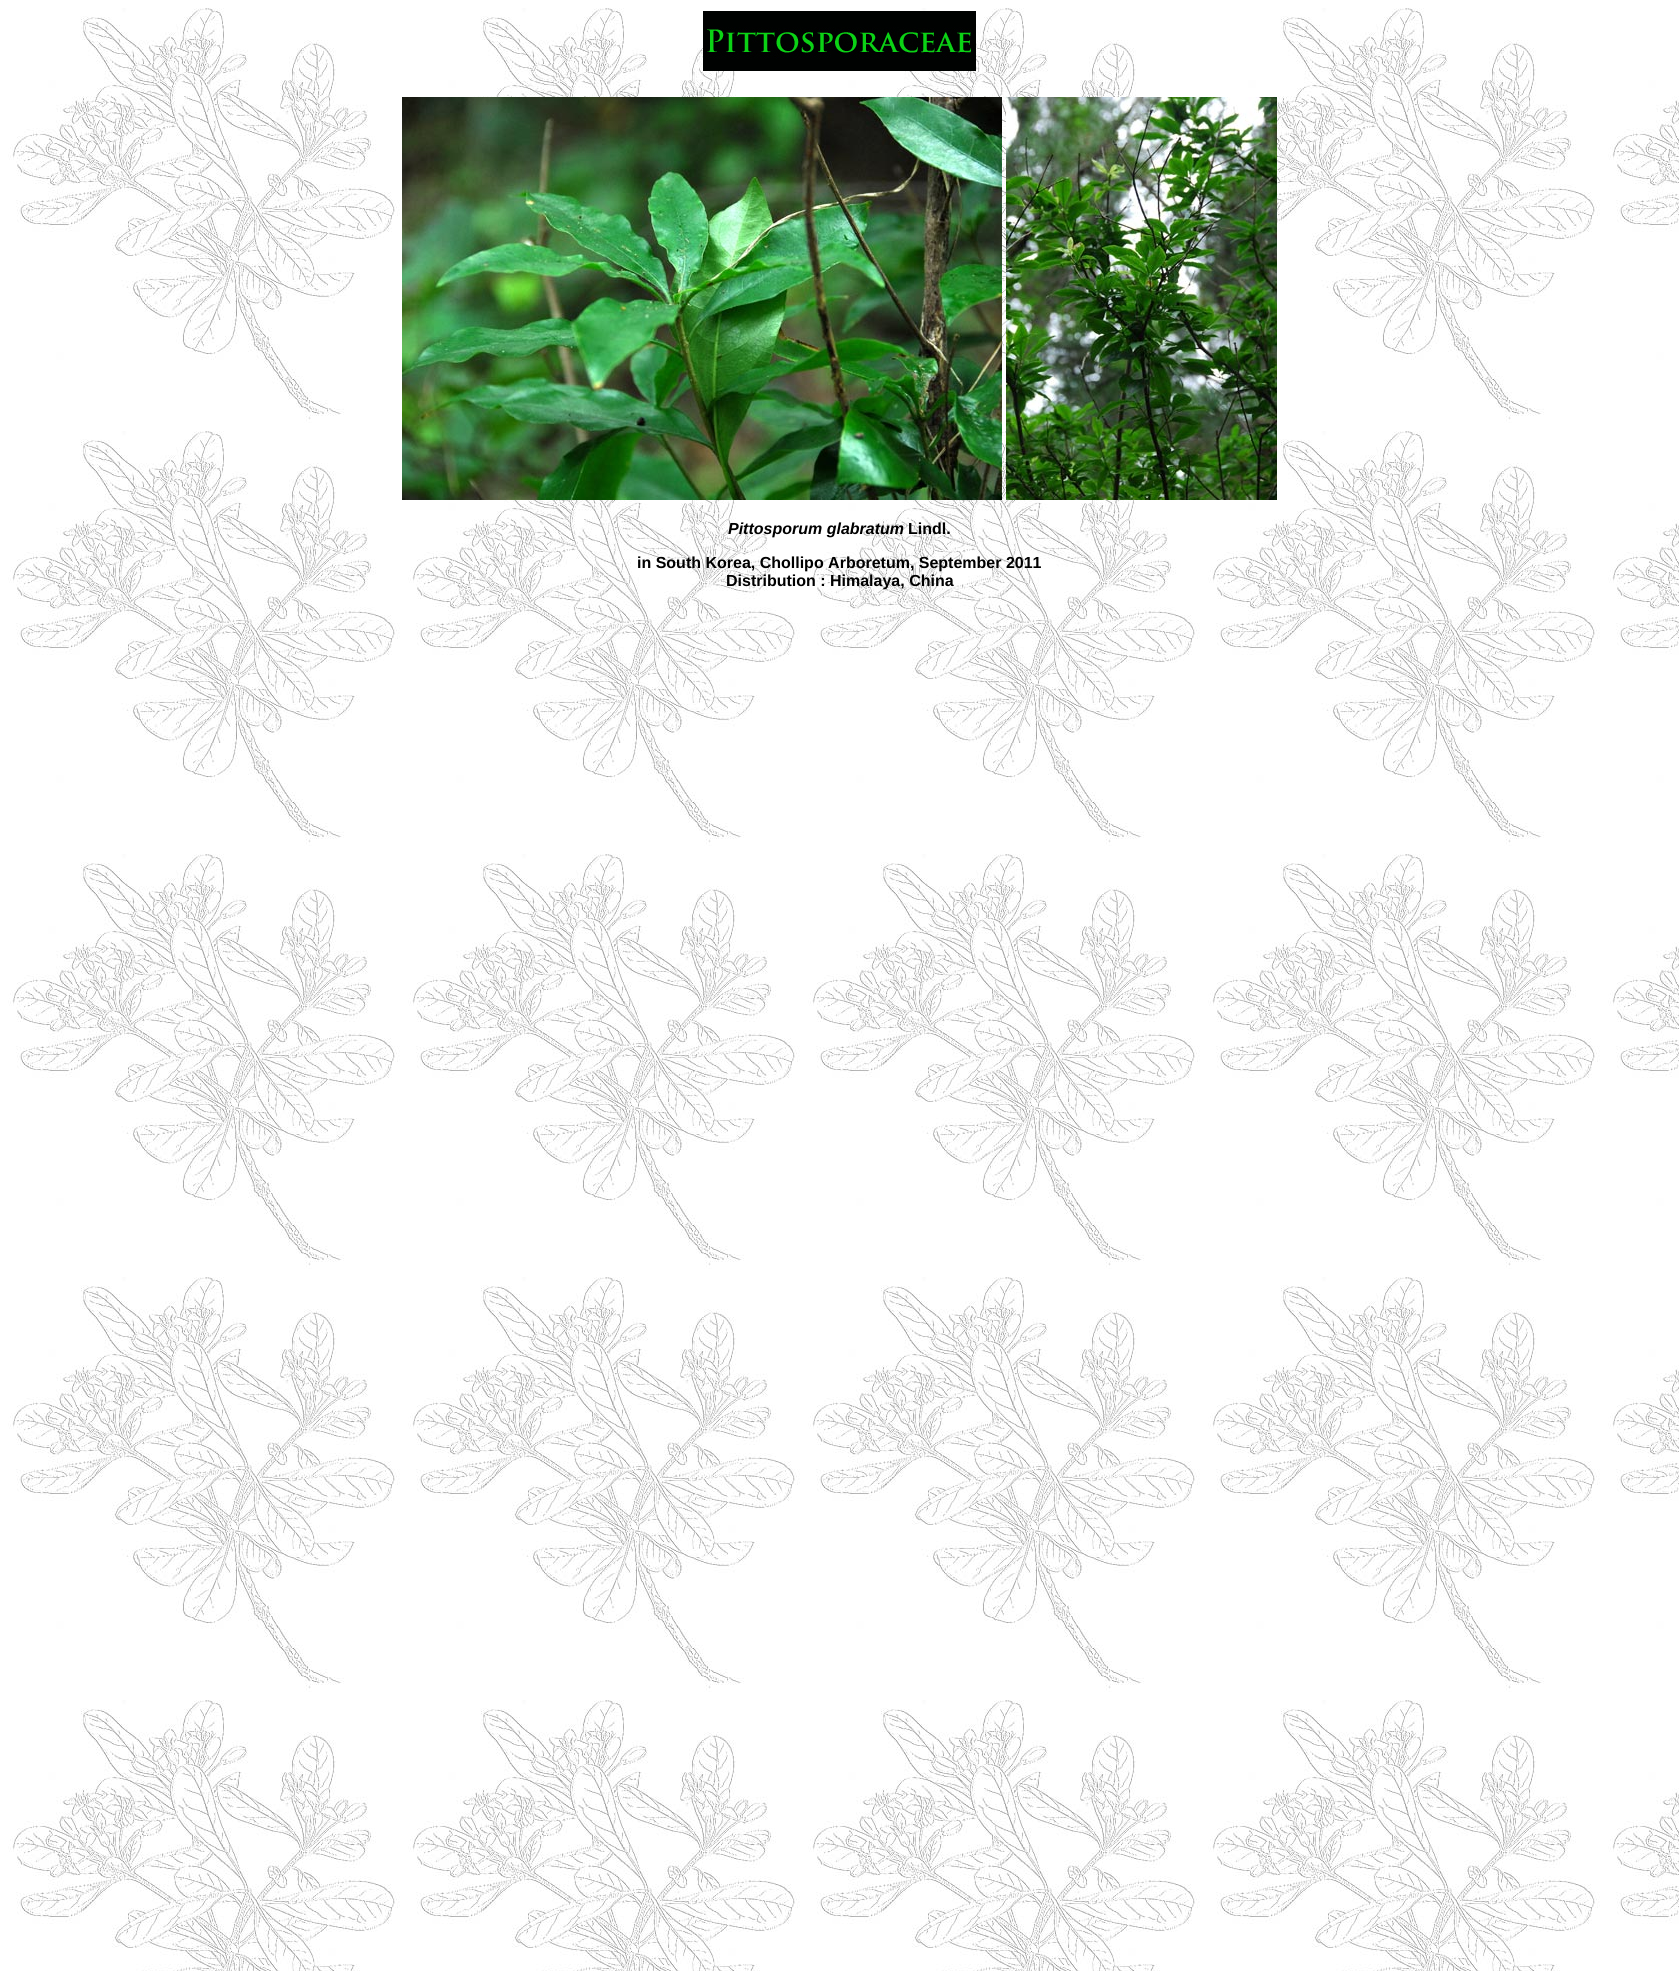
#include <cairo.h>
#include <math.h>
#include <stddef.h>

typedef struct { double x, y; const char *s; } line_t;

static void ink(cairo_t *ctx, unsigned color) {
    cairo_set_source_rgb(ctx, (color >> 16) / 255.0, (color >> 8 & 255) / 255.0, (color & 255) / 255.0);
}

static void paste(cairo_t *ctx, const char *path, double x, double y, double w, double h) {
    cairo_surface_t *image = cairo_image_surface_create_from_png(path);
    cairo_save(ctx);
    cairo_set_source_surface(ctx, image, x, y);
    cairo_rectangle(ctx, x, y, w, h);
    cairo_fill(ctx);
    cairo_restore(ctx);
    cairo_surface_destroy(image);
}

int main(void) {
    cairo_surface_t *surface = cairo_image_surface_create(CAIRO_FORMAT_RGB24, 1679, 1971);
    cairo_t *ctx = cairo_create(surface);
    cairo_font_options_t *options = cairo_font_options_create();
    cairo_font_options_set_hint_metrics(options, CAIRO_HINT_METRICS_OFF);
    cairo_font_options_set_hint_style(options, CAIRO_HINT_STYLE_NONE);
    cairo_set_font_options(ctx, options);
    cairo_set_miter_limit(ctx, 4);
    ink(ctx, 0xFFFFFF);
    cairo_paint(ctx);
    paste(ctx, "media/1.png", 0, 0, 1679, 1971);
    paste(ctx, "media/2.png", 703, 11, 273, 60);
    paste(ctx, "media/3.png", 402, 97, 600, 403);
    paste(ctx, "media/4.png", 1006, 97, 271, 403);
    cairo_select_font_face(ctx, "Liberation Sans", CAIRO_FONT_SLANT_ITALIC, CAIRO_FONT_WEIGHT_BOLD);
    cairo_set_font_size(ctx, 16);
    ink(ctx, 0x000000);
    cairo_move_to(ctx, 728, 534);
    cairo_show_text(ctx, "Pittosporum glabratum");
    cairo_select_font_face(ctx, "Liberation Sans", CAIRO_FONT_SLANT_NORMAL, CAIRO_FONT_WEIGHT_BOLD);
    {
        static const line_t items[] = {
            {908, 534, "Lindl."},
            {637, 568, "in South Korea, Chollipo Arboretum, September 2011"},
            {726, 586, "Distribution : Himalaya, China"},
        };
        for (size_t i = 0; i < sizeof items / sizeof *items; i++) {
            cairo_move_to(ctx, items[i].x, items[i].y);
            cairo_show_text(ctx, items[i].s);
        }
    }
    cairo_surface_write_to_png(surface, "image.png");
    cairo_font_options_destroy(options);
    cairo_destroy(ctx);
    cairo_surface_destroy(surface);
    return 0;
}
